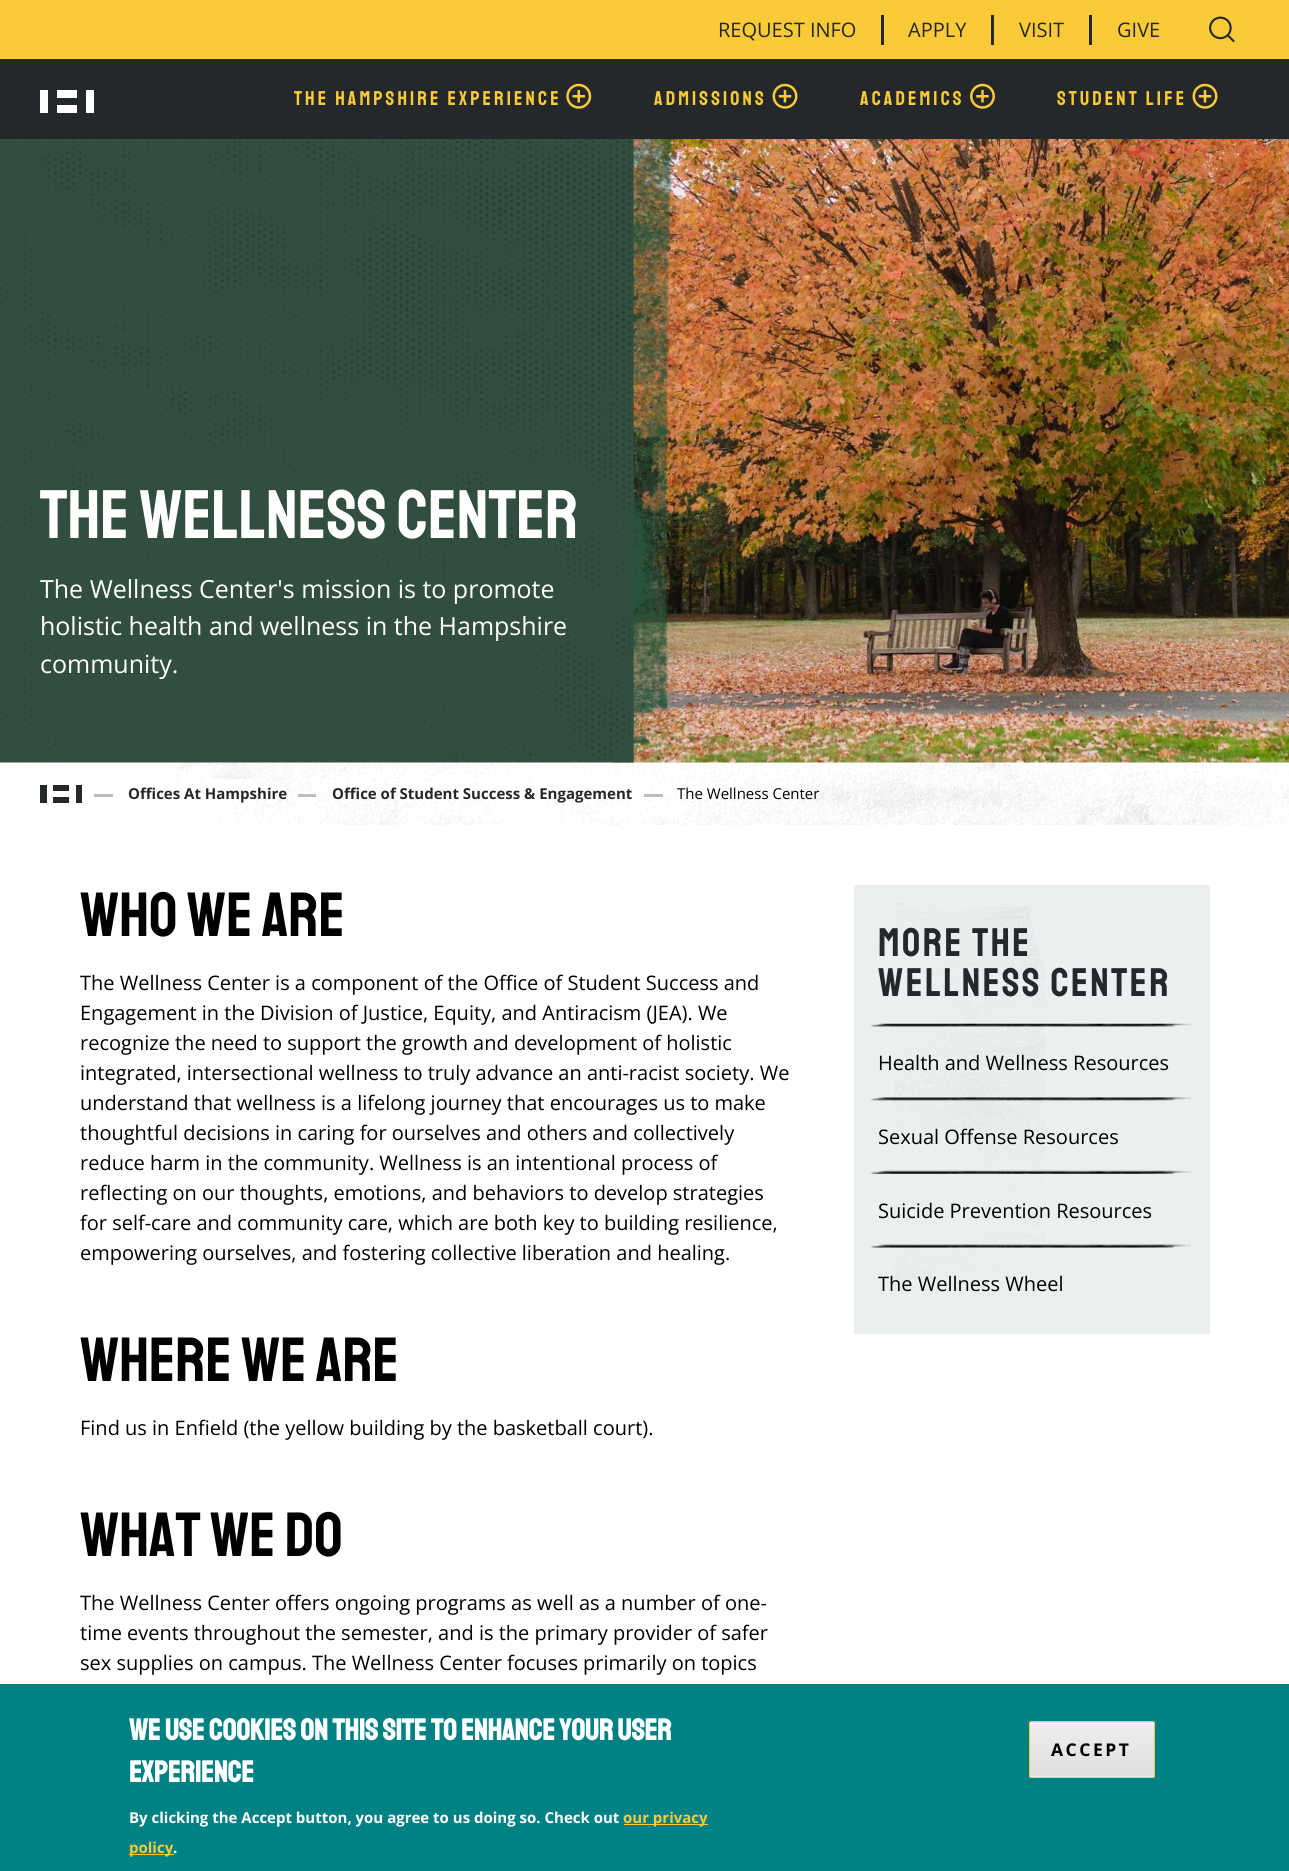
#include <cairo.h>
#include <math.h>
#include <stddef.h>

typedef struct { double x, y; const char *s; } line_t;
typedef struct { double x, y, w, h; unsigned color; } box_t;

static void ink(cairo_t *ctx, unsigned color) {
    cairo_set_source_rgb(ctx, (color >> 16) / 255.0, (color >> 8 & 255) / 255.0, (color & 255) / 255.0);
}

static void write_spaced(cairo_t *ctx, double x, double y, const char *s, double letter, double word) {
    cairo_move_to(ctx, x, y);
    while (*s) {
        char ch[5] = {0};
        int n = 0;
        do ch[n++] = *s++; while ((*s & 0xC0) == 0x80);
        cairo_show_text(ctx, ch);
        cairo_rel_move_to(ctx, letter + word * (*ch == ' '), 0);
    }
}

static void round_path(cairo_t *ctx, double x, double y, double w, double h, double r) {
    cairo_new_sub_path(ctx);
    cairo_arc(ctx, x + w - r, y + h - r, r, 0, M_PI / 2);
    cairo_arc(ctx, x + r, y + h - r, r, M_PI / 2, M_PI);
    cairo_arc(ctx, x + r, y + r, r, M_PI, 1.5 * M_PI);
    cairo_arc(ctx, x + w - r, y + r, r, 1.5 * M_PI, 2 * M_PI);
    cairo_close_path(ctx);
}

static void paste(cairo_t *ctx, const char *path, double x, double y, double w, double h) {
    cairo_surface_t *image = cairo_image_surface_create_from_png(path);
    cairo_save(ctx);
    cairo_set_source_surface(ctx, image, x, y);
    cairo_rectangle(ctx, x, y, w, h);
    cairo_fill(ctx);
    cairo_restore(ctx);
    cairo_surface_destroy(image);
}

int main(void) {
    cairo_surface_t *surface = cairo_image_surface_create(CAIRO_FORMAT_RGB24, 1289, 1871);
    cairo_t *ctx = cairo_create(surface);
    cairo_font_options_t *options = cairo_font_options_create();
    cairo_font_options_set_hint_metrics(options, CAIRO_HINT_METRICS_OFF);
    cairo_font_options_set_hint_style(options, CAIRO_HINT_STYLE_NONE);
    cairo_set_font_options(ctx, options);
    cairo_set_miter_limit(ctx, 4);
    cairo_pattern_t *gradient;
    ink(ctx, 0xFFFFFF);
    cairo_paint(ctx);
    {
        static const box_t items[] = {
            {0, 59, 1289, 80, 0x25282A},
            {0, 0, 1289, 59, 0xFACA39},
            {881, 15, 3, 30, 0x25282A},
        };
        for (size_t i = 0; i < sizeof items / sizeof *items; i++) {
            ink(ctx, items[i].color);
            cairo_rectangle(ctx, items[i].x, items[i].y, items[i].w, items[i].h);
            cairo_fill(ctx);
        }
    }
    cairo_select_font_face(ctx, "Open Sans", CAIRO_FONT_SLANT_NORMAL, CAIRO_FONT_WEIGHT_NORMAL);
    cairo_set_font_size(ctx, 20);
    cairo_move_to(ctx, 718, 37);
    cairo_show_text(ctx, "REQUEST INFO");
    cairo_rectangle(ctx, 991, 15, 3, 30);
    cairo_fill(ctx);
    cairo_move_to(ctx, 908, 37);
    cairo_show_text(ctx, "APPLY");
    cairo_rectangle(ctx, 1089, 15, 3, 30);
    cairo_fill(ctx);
    cairo_move_to(ctx, 1019, 37);
    cairo_show_text(ctx, "VISIT");
    cairo_move_to(ctx, 1117, 37);
    cairo_show_text(ctx, "GIVE");
    paste(ctx, "media/1.png", 1209, 16, 26, 27);
    {
        static const box_t items[] = {
            {40, 90, 8, 23, 0xFFFFFF},
            {86, 90, 8, 23, 0xFFFFFF},
            {57, 90, 20, 8, 0xFFFFFF},
            {57, 105, 20, 8, 0xFFFFFF},
        };
        for (size_t i = 0; i < sizeof items / sizeof *items; i++) {
            ink(ctx, items[i].color);
            cairo_rectangle(ctx, items[i].x, items[i].y, items[i].w, items[i].h);
            cairo_fill(ctx);
        }
    }
    cairo_select_font_face(ctx, "Staatliches", CAIRO_FONT_SLANT_NORMAL, CAIRO_FONT_WEIGHT_NORMAL);
    ink(ctx, 0xFACA39);
    write_spaced(ctx, 294, 105, "THE HAMPSHIRE EXPERIENCE", 3.1, 0);
    paste(ctx, "media/2.png", 566, 83, 26, 26);
    write_spaced(ctx, 654, 105, "ADMISSIONS", 3.1, 0);
    paste(ctx, "media/3.png", 772, 83, 26, 26);
    write_spaced(ctx, 860, 105, "ACADEMICS", 3.1, 0);
    paste(ctx, "media/4.png", 970, 83, 25, 26);
    write_spaced(ctx, 1057, 105, "STUDENT LIFE", 3.1, 0);
    paste(ctx, "media/3.png", 1192, 83, 26, 26);
    paste(ctx, "media/6.png", 612, 139, 677, 624);
    paste(ctx, "media/5.png", 0, 139, 678, 624);
    cairo_set_font_size(ctx, 68.75);
    ink(ctx, 0xFFFFFF);
    cairo_move_to(ctx, 40, 538);
    cairo_show_text(ctx, "The Wellness Center");
    cairo_select_font_face(ctx, "Open Sans", CAIRO_FONT_SLANT_NORMAL, CAIRO_FONT_WEIGHT_NORMAL);
    cairo_set_font_size(ctx, 25);
    {
        static const line_t items[] = {
            {40, 598, "The Wellness Center's mission is to promote"},
            {40, 635, "holistic health and wellness in the Hampshire"},
            {40, 673, "community."},
        };
        for (size_t i = 0; i < sizeof items / sizeof *items; i++) {
            cairo_move_to(ctx, items[i].x, items[i].y);
            cairo_show_text(ctx, items[i].s);
        }
    }
    paste(ctx, "media/7.png", 172, 762, 1117, 63);
    {
        static const box_t items[] = {
            {40, 785, 7, 18, 0x25282A},
            {76, 785, 6, 18, 0x25282A},
            {53, 785, 16, 6, 0x25282A},
            {53, 797, 16, 6, 0x25282A},
            {94, 794, 19, 3, 0xBCBDC0},
        };
        for (size_t i = 0; i < sizeof items / sizeof *items; i++) {
            ink(ctx, items[i].color);
            cairo_rectangle(ctx, items[i].x, items[i].y, items[i].w, items[i].h);
            cairo_fill(ctx);
        }
    }
    cairo_select_font_face(ctx, "Open Sans", CAIRO_FONT_SLANT_NORMAL, CAIRO_FONT_WEIGHT_BOLD);
    cairo_set_font_size(ctx, 15);
    ink(ctx, 0x25282A);
    cairo_move_to(ctx, 128, 799);
    cairo_show_text(ctx, "Offices At Hampshire");
    ink(ctx, 0xBCBDC0);
    cairo_rectangle(ctx, 298, 794, 18, 3);
    cairo_fill(ctx);
    ink(ctx, 0x25282A);
    cairo_move_to(ctx, 332, 799);
    cairo_show_text(ctx, "Office of Student Success & Engagement");
    ink(ctx, 0xBCBDC0);
    cairo_rectangle(ctx, 644, 794, 19, 3);
    cairo_fill(ctx);
    cairo_select_font_face(ctx, "Open Sans", CAIRO_FONT_SLANT_NORMAL, CAIRO_FONT_WEIGHT_NORMAL);
    ink(ctx, 0x000000);
    cairo_move_to(ctx, 677, 799);
    cairo_show_text(ctx, "The Wellness Center");
    cairo_select_font_face(ctx, "Staatliches", CAIRO_FONT_SLANT_NORMAL, CAIRO_FONT_WEIGHT_NORMAL);
    cairo_set_font_size(ctx, 62.5);
    cairo_move_to(ctx, 80, 936);
    cairo_show_text(ctx, "Who we are");
    cairo_select_font_face(ctx, "Open Sans", CAIRO_FONT_SLANT_NORMAL, CAIRO_FONT_WEIGHT_NORMAL);
    cairo_set_font_size(ctx, 20);
    {
        static const line_t items[] = {
            {80, 990, "The Wellness Center is a component of the Office of Student Success and"},
            {80, 1020, "Engagement in the Division of Justice, Equity, and Antiracism (JEA). We"},
            {80, 1050, "recognize the need to support the growth and development of holistic"},
            {80, 1080, "integrated, intersectional wellness to truly advance an anti-racist society. We"},
            {80, 1110, "understand that wellness is a lifelong journey that encourages us to make"},
            {80, 1140, "thoughtful decisions in caring for ourselves and others and collectively"},
            {80, 1170, "reduce harm in the community. Wellness is an intentional process of"},
            {80, 1200, "reflecting on our thoughts, emotions, and behaviors to develop strategies"},
            {80, 1230, "for self-care and community care, which are both key to building resilience,"},
            {80, 1260, "empowering ourselves, and fostering collective liberation and healing."},
        };
        for (size_t i = 0; i < sizeof items / sizeof *items; i++) {
            cairo_move_to(ctx, items[i].x, items[i].y);
            cairo_show_text(ctx, items[i].s);
        }
    }
    cairo_select_font_face(ctx, "Staatliches", CAIRO_FONT_SLANT_NORMAL, CAIRO_FONT_WEIGHT_NORMAL);
    cairo_set_font_size(ctx, 62.5);
    cairo_move_to(ctx, 80, 1381);
    cairo_show_text(ctx, "Where we are");
    cairo_select_font_face(ctx, "Open Sans", CAIRO_FONT_SLANT_NORMAL, CAIRO_FONT_WEIGHT_NORMAL);
    cairo_set_font_size(ctx, 20);
    cairo_move_to(ctx, 80, 1435);
    cairo_show_text(ctx, "Find us in Enfield (the yellow building by the basketball court).");
    cairo_select_font_face(ctx, "Staatliches", CAIRO_FONT_SLANT_NORMAL, CAIRO_FONT_WEIGHT_NORMAL);
    cairo_set_font_size(ctx, 62.5);
    cairo_move_to(ctx, 80, 1556);
    cairo_show_text(ctx, "What we do");
    cairo_select_font_face(ctx, "Open Sans", CAIRO_FONT_SLANT_NORMAL, CAIRO_FONT_WEIGHT_NORMAL);
    cairo_set_font_size(ctx, 20);
    {
        static const line_t items[] = {
            {80, 1610, "The Wellness Center offers ongoing programs as well as a number of one-"},
            {80, 1640, "time events throughout the semester, and is the primary provider of safer"},
            {80, 1670, "sex supplies on campus. The Wellness Center focuses primarily on topics"},
        };
        for (size_t i = 0; i < sizeof items / sizeof *items; i++) {
            cairo_move_to(ctx, items[i].x, items[i].y);
            cairo_show_text(ctx, items[i].s);
        }
    }
    ink(ctx, 0xEBEFEF);
    cairo_rectangle(ctx, 854, 885, 356, 449);
    cairo_fill(ctx);
    paste(ctx, "media/8.png", 894, 893, 151, 397);
    cairo_select_font_face(ctx, "Staatliches", CAIRO_FONT_SLANT_NORMAL, CAIRO_FONT_WEIGHT_NORMAL);
    cairo_set_font_size(ctx, 40);
    ink(ctx, 0x25282A);
    write_spaced(ctx, 878, 956, "More The", 2.5, 0);
    write_spaced(ctx, 878, 996, "Wellness Center", 2.5, 0);
    paste(ctx, "media/9.png", 870, 1023, 321, 4);
    cairo_select_font_face(ctx, "Open Sans", CAIRO_FONT_SLANT_NORMAL, CAIRO_FONT_WEIGHT_NORMAL);
    cairo_set_font_size(ctx, 20);
    ink(ctx, 0x000000);
    cairo_move_to(ctx, 878, 1070);
    cairo_show_text(ctx, "Health and Wellness Resources");
    paste(ctx, "media/10.png", 870, 1097, 321, 4);
    cairo_move_to(ctx, 878, 1144);
    cairo_show_text(ctx, "Sexual Offense Resources");
    paste(ctx, "media/11.png", 870, 1170, 321, 4);
    cairo_move_to(ctx, 878, 1218);
    cairo_show_text(ctx, "Suicide Prevention Resources");
    paste(ctx, "media/12.png", 870, 1244, 321, 4);
    cairo_move_to(ctx, 878, 1291);
    cairo_show_text(ctx, "The Wellness Wheel");
    ink(ctx, 0x008285);
    cairo_rectangle(ctx, 0, 1684, 1289, 187);
    cairo_fill(ctx);
    cairo_select_font_face(ctx, "Staatliches", CAIRO_FONT_SLANT_NORMAL, CAIRO_FONT_WEIGHT_BOLD);
    cairo_set_font_size(ctx, 30);
    ink(ctx, 0xFFFFFF);
    cairo_move_to(ctx, 129, 1740);
    cairo_show_text(ctx, "We use cookies on this site to enhance your user");
    cairo_move_to(ctx, 129, 1782);
    cairo_show_text(ctx, "experience");
    cairo_select_font_face(ctx, "Open Sans", CAIRO_FONT_SLANT_NORMAL, CAIRO_FONT_WEIGHT_BOLD);
    cairo_set_font_size(ctx, 15);
    cairo_move_to(ctx, 129, 1823);
    cairo_show_text(ctx, "By clicking the Accept button, you agree to us doing so. Check out");
    ink(ctx, 0xFACA39);
    cairo_rectangle(ctx, 624, 1824, 84, 1);
    cairo_fill(ctx);
    cairo_move_to(ctx, 623, 1823);
    cairo_show_text(ctx, "our privacy");
    cairo_rectangle(ctx, 129, 1854, 45, 1);
    cairo_fill(ctx);
    cairo_move_to(ctx, 129, 1853);
    cairo_show_text(ctx, "policy");
    ink(ctx, 0xFFFFFF);
    cairo_move_to(ctx, 173, 1853);
    cairo_show_text(ctx, ".");
    cairo_save(ctx);
    round_path(ctx, 1029, 1721, 126, 57, 2.5);
    cairo_clip(ctx);
    gradient = cairo_pattern_create_linear(1092, 1669, 1092, 1723);
    cairo_pattern_add_color_stop_rgba(gradient, 0.05, 0.929, 0.929, 0.929, 1);
    cairo_pattern_add_color_stop_rgba(gradient, 1, 0.875, 0.875, 0.875, 1);
    cairo_set_source(ctx, gradient);
    cairo_pattern_destroy(gradient);
    cairo_rectangle(ctx, 1029, 1721, 126, 2);
    cairo_fill(ctx);
    cairo_restore(ctx);
    gradient = cairo_pattern_create_linear(1092, 1723, 1092, 1776);
    cairo_pattern_add_color_stop_rgba(gradient, 0.05, 0.929, 0.929, 0.929, 1);
    cairo_pattern_add_color_stop_rgba(gradient, 1, 0.875, 0.875, 0.875, 1);
    cairo_set_source(ctx, gradient);
    cairo_pattern_destroy(gradient);
    cairo_rectangle(ctx, 1029, 1723, 126, 53);
    cairo_fill(ctx);
    cairo_save(ctx);
    round_path(ctx, 1029, 1721, 126, 57, 2.5);
    cairo_clip(ctx);
    gradient = cairo_pattern_create_linear(1092, 1776, 1092, 1830);
    cairo_pattern_add_color_stop_rgba(gradient, 0.05, 0.929, 0.929, 0.929, 1);
    cairo_pattern_add_color_stop_rgba(gradient, 1, 0.875, 0.875, 0.875, 1);
    cairo_set_source(ctx, gradient);
    cairo_pattern_destroy(gradient);
    cairo_rectangle(ctx, 1029, 1776, 126, 2);
    cairo_fill(ctx);
    cairo_restore(ctx);
    ink(ctx, 0xFFFFFF);
    cairo_new_path(ctx);
    cairo_move_to(ctx, 1031, 1724);
    cairo_line_to(ctx, 1152, 1724);
    cairo_curve_to(ctx, 1153, 1724, 1154, 1724, 1154, 1725);
    cairo_curve_to(ctx, 1154, 1724, 1154, 1723, 1153, 1723);
    cairo_line_to(ctx, 1031, 1723);
    cairo_curve_to(ctx, 1030, 1723, 1030, 1724, 1030, 1725);
    cairo_close_path(ctx);
    cairo_fill(ctx);
    round_path(ctx, 1029.5, 1721.5, 125, 56, 2);
    ink(ctx, 0xFACA39);
    cairo_set_line_width(ctx, 1);
    cairo_stroke(ctx);
    cairo_set_font_size(ctx, 17.5);
    ink(ctx, 0x000000);
    write_spaced(ctx, 1051, 1756, "ACCEPT", 2.5, 0);
    cairo_surface_write_to_png(surface, "image.png");
    cairo_font_options_destroy(options);
    cairo_destroy(ctx);
    cairo_surface_destroy(surface);
    return 0;
}
